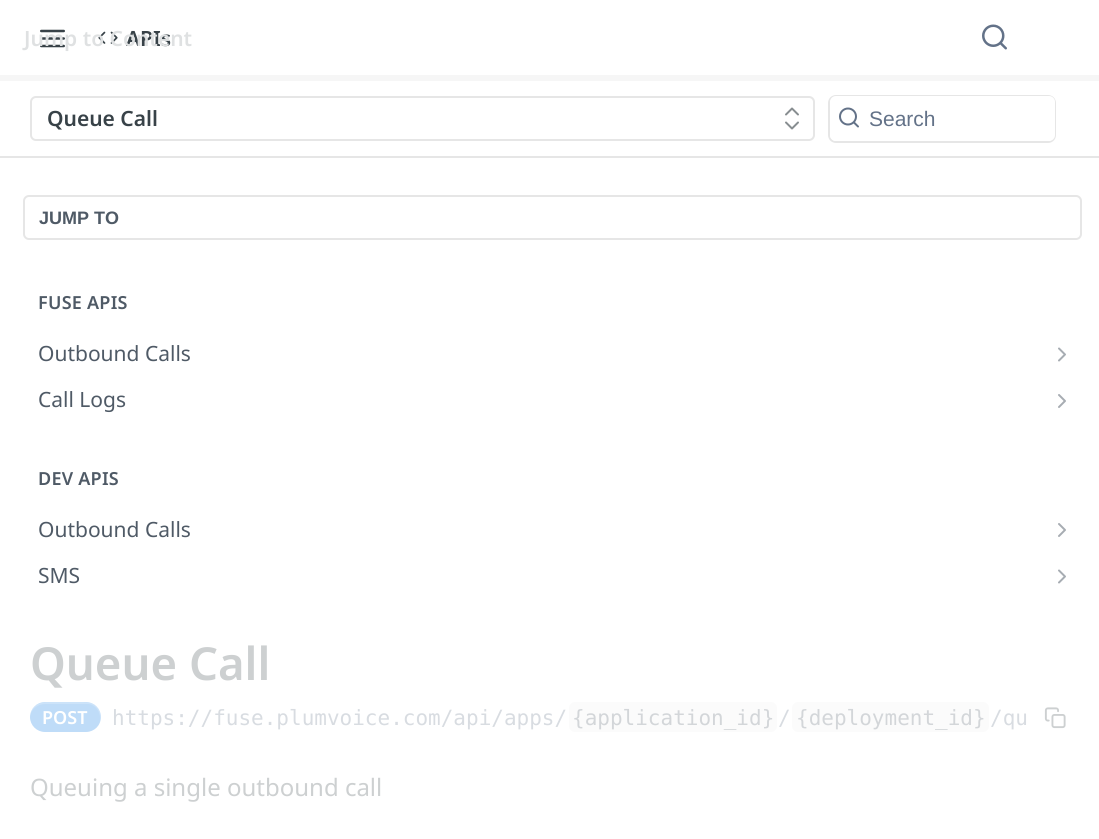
#include <cairo.h>
#include <math.h>
#include <stddef.h>


static void ink(cairo_t *ctx, unsigned color) {
    cairo_set_source_rgb(ctx, (color >> 16) / 255.0, (color >> 8 & 255) / 255.0, (color & 255) / 255.0);
}

static void write_spaced(cairo_t *ctx, double x, double y, const char *s, double letter, double word) {
    cairo_move_to(ctx, x, y);
    while (*s) {
        char ch[5] = {0};
        int n = 0;
        do ch[n++] = *s++; while ((*s & 0xC0) == 0x80);
        cairo_show_text(ctx, ch);
        cairo_rel_move_to(ctx, letter + word * (*ch == ' '), 0);
    }
}

static void round_path(cairo_t *ctx, double x, double y, double w, double h, double r) {
    cairo_new_sub_path(ctx);
    cairo_arc(ctx, x + w - r, y + h - r, r, 0, M_PI / 2);
    cairo_arc(ctx, x + r, y + h - r, r, M_PI / 2, M_PI);
    cairo_arc(ctx, x + r, y + r, r, M_PI, 1.5 * M_PI);
    cairo_arc(ctx, x + w - r, y + r, r, 1.5 * M_PI, 2 * M_PI);
    cairo_close_path(ctx);
}

static void paste(cairo_t *ctx, const char *path, double x, double y, double w, double h) {
    cairo_surface_t *image = cairo_image_surface_create_from_png(path);
    cairo_save(ctx);
    cairo_set_source_surface(ctx, image, x, y);
    cairo_rectangle(ctx, x, y, w, h);
    cairo_fill(ctx);
    cairo_restore(ctx);
    cairo_surface_destroy(image);
}

int main(void) {
    cairo_surface_t *surface = cairo_image_surface_create(CAIRO_FORMAT_RGB24, 1099, 839);
    cairo_t *ctx = cairo_create(surface);
    cairo_font_options_t *options = cairo_font_options_create();
    cairo_font_options_set_hint_metrics(options, CAIRO_HINT_METRICS_OFF);
    cairo_font_options_set_hint_style(options, CAIRO_HINT_STYLE_NONE);
    cairo_set_font_options(ctx, options);
    cairo_set_miter_limit(ctx, 4);
    ink(ctx, 0xFFFFFF);
    cairo_paint(ctx);
    ink(ctx, 0xE6E6E6);
    cairo_new_path(ctx);
    cairo_move_to(ctx, 0, 156);
    cairo_line_to(ctx, 0, 158);
    cairo_line_to(ctx, 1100, 158);
    cairo_line_to(ctx, 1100, 2);
    cairo_line_to(ctx, 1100, 156);
    cairo_close_path(ctx);
    cairo_fill(ctx);
    ink(ctx, 0xF6F6F6);
    cairo_rectangle(ctx, 0, 75, 1099, 6);
    cairo_fill(ctx);
    paste(ctx, "media/2.png", 40, 29, 25, 19);
    paste(ctx, "media/3.png", 98, 31, 20, 13);
    cairo_select_font_face(ctx, "Noto Sans SemiBold", CAIRO_FONT_SLANT_NORMAL, CAIRO_FONT_WEIGHT_NORMAL);
    cairo_set_font_size(ctx, 21);
    ink(ctx, 0x384248);
    cairo_move_to(ctx, 126, 46);
    cairo_show_text(ctx, "APIs");
    ink(ctx, 0xDFE1E2);
    cairo_move_to(ctx, 24, 46);
    cairo_show_text(ctx, "Jump to Content");
    paste(ctx, "media/1.png", 982, 24, 25, 26);
    round_path(ctx, 31, 97, 783, 43, 5);
    ink(ctx, 0xE6E6E6);
    cairo_stroke(ctx);
    ink(ctx, 0x384248);
    cairo_move_to(ctx, 47, 126);
    cairo_show_text(ctx, "Queue Call");
    cairo_new_path(ctx);
    cairo_move_to(ctx, 786, 122.5);
    cairo_line_to(ctx, 792, 128.5);
    cairo_line_to(ctx, 798, 122.5);
    cairo_move_to(ctx, 798, 114.5);
    cairo_line_to(ctx, 792, 108.5);
    cairo_line_to(ctx, 786, 114.5);
    ink(ctx, 0x888E91);
    cairo_set_line_cap(ctx, CAIRO_LINE_CAP_ROUND);
    cairo_set_line_join(ctx, CAIRO_LINE_JOIN_ROUND);
    cairo_stroke(ctx);
    round_path(ctx, 829, 96, 226, 46, 7);
    ink(ctx, 0xE6E6E6);
    cairo_set_line_cap(ctx, CAIRO_LINE_CAP_BUTT);
    cairo_set_line_join(ctx, CAIRO_LINE_JOIN_MITER);
    cairo_stroke(ctx);
    ink(ctx, 0xFFFFFF);
    round_path(ctx, 830, 96, 225, 45, 6);
    cairo_fill(ctx);
    paste(ctx, "media/4.png", 839, 107, 20, 21);
    cairo_select_font_face(ctx, "Liberation Sans", CAIRO_FONT_SLANT_NORMAL, CAIRO_FONT_WEIGHT_NORMAL);
    ink(ctx, 0x637288);
    cairo_move_to(ctx, 869, 126);
    cairo_show_text(ctx, "Search");
    round_path(ctx, 24, 196, 1057, 43, 5);
    ink(ctx, 0xE6E6E6);
    cairo_stroke(ctx);
    cairo_select_font_face(ctx, "Liberation Sans", CAIRO_FONT_SLANT_NORMAL, CAIRO_FONT_WEIGHT_BOLD);
    cairo_set_font_size(ctx, 18);
    ink(ctx, 0x4F5A66);
    cairo_move_to(ctx, 39, 224);
    cairo_show_text(ctx, "JUMP TO");
    cairo_select_font_face(ctx, "Noto Sans SemiBold", CAIRO_FONT_SLANT_NORMAL, CAIRO_FONT_WEIGHT_NORMAL);
    write_spaced(ctx, 38, 309, "FUSE APIS", 0.25, 0);
    cairo_select_font_face(ctx, "Noto Sans", CAIRO_FONT_SLANT_NORMAL, CAIRO_FONT_WEIGHT_NORMAL);
    cairo_set_font_size(ctx, 21);
    cairo_move_to(ctx, 38, 361);
    cairo_show_text(ctx, "Outbound Calls");
    paste(ctx, "media/5.png", 1058, 347, 8, 15);
    cairo_move_to(ctx, 38, 407);
    cairo_show_text(ctx, "Call Logs");
    paste(ctx, "media/6.png", 1058, 394, 8, 14);
    cairo_select_font_face(ctx, "Noto Sans SemiBold", CAIRO_FONT_SLANT_NORMAL, CAIRO_FONT_WEIGHT_NORMAL);
    cairo_set_font_size(ctx, 18);
    write_spaced(ctx, 38, 485, "DEV APIS", 0.25, 0);
    cairo_select_font_face(ctx, "Noto Sans", CAIRO_FONT_SLANT_NORMAL, CAIRO_FONT_WEIGHT_NORMAL);
    cairo_set_font_size(ctx, 21);
    cairo_move_to(ctx, 38, 537);
    cairo_show_text(ctx, "Outbound Calls");
    paste(ctx, "media/6.png", 1058, 523, 8, 14);
    cairo_move_to(ctx, 38, 583);
    cairo_show_text(ctx, "SMS");
    paste(ctx, "media/5.png", 1058, 569, 8, 15);
    cairo_select_font_face(ctx, "Noto Sans SemiBold", CAIRO_FONT_SLANT_NORMAL, CAIRO_FONT_WEIGHT_NORMAL);
    cairo_set_font_size(ctx, 45.5);
    ink(ctx, 0xCDD0D1);
    cairo_move_to(ctx, 30, 680);
    cairo_show_text(ctx, "Queue Call");
    ink(ctx, 0xBFDCF8);
    round_path(ctx, 30, 702, 71, 30, 15);
    cairo_fill(ctx);
    cairo_set_source_rgba(ctx, 1, 1, 1, 0.2);
    cairo_new_path(ctx);
    cairo_move_to(ctx, 45, 704);
    cairo_line_to(ctx, 89, 704);
    cairo_curve_to(ctx, 99, 706, 102, 717, 99, 725);
    cairo_curve_to(ctx, 101, 722, 101, 718, 101, 714);
    cairo_curve_to(ctx, 98, 702, 89, 702, 79, 702);
    cairo_line_to(ctx, 66, 702);
    cairo_curve_to(ctx, 53, 702, 29, 698, 30, 718);
    cairo_curve_to(ctx, 30, 710, 37, 704, 45, 704);
    cairo_close_path(ctx);
    cairo_fill(ctx);
    cairo_set_font_size(ctx, 18);
    ink(ctx, 0xFFFFFF);
    cairo_move_to(ctx, 42, 724);
    cairo_show_text(ctx, "POST");
    cairo_select_font_face(ctx, "DejaVu Sans Mono", CAIRO_FONT_SLANT_NORMAL, CAIRO_FONT_WEIGHT_NORMAL);
    cairo_set_font_size(ctx, 21);
    ink(ctx, 0xD8DCE1);
    cairo_move_to(ctx, 112, 725);
    cairo_show_text(ctx, "https://fuse.plumvoice.com/api/apps/");
    ink(ctx, 0xFBFBFB);
    round_path(ctx, 569, 702, 208, 30, 6);
    cairo_fill(ctx);
    ink(ctx, 0xD3D6D9);
    cairo_move_to(ctx, 572, 725);
    cairo_show_text(ctx, "{application_id}");
    ink(ctx, 0xD8DCE1);
    cairo_move_to(ctx, 778, 725);
    cairo_show_text(ctx, "/");
    ink(ctx, 0xFBFBFB);
    round_path(ctx, 792, 702, 197, 30, 6);
    cairo_fill(ctx);
    ink(ctx, 0xD3D6D9);
    cairo_move_to(ctx, 796, 725);
    cairo_show_text(ctx, "{deployment_id}");
    ink(ctx, 0xD8DCE1);
    cairo_move_to(ctx, 990, 725);
    cairo_show_text(ctx, "/qu");
    paste(ctx, "media/7.png", 1044, 707, 22, 22);
    cairo_select_font_face(ctx, "Noto Sans", CAIRO_FONT_SLANT_NORMAL, CAIRO_FONT_WEIGHT_NORMAL);
    cairo_set_font_size(ctx, 24);
    ink(ctx, 0xCDD0D1);
    cairo_move_to(ctx, 30, 796);
    cairo_show_text(ctx, "Queuing a single outbound call");
    cairo_surface_write_to_png(surface, "image.png");
    cairo_font_options_destroy(options);
    cairo_destroy(ctx);
    cairo_surface_destroy(surface);
    return 0;
}
